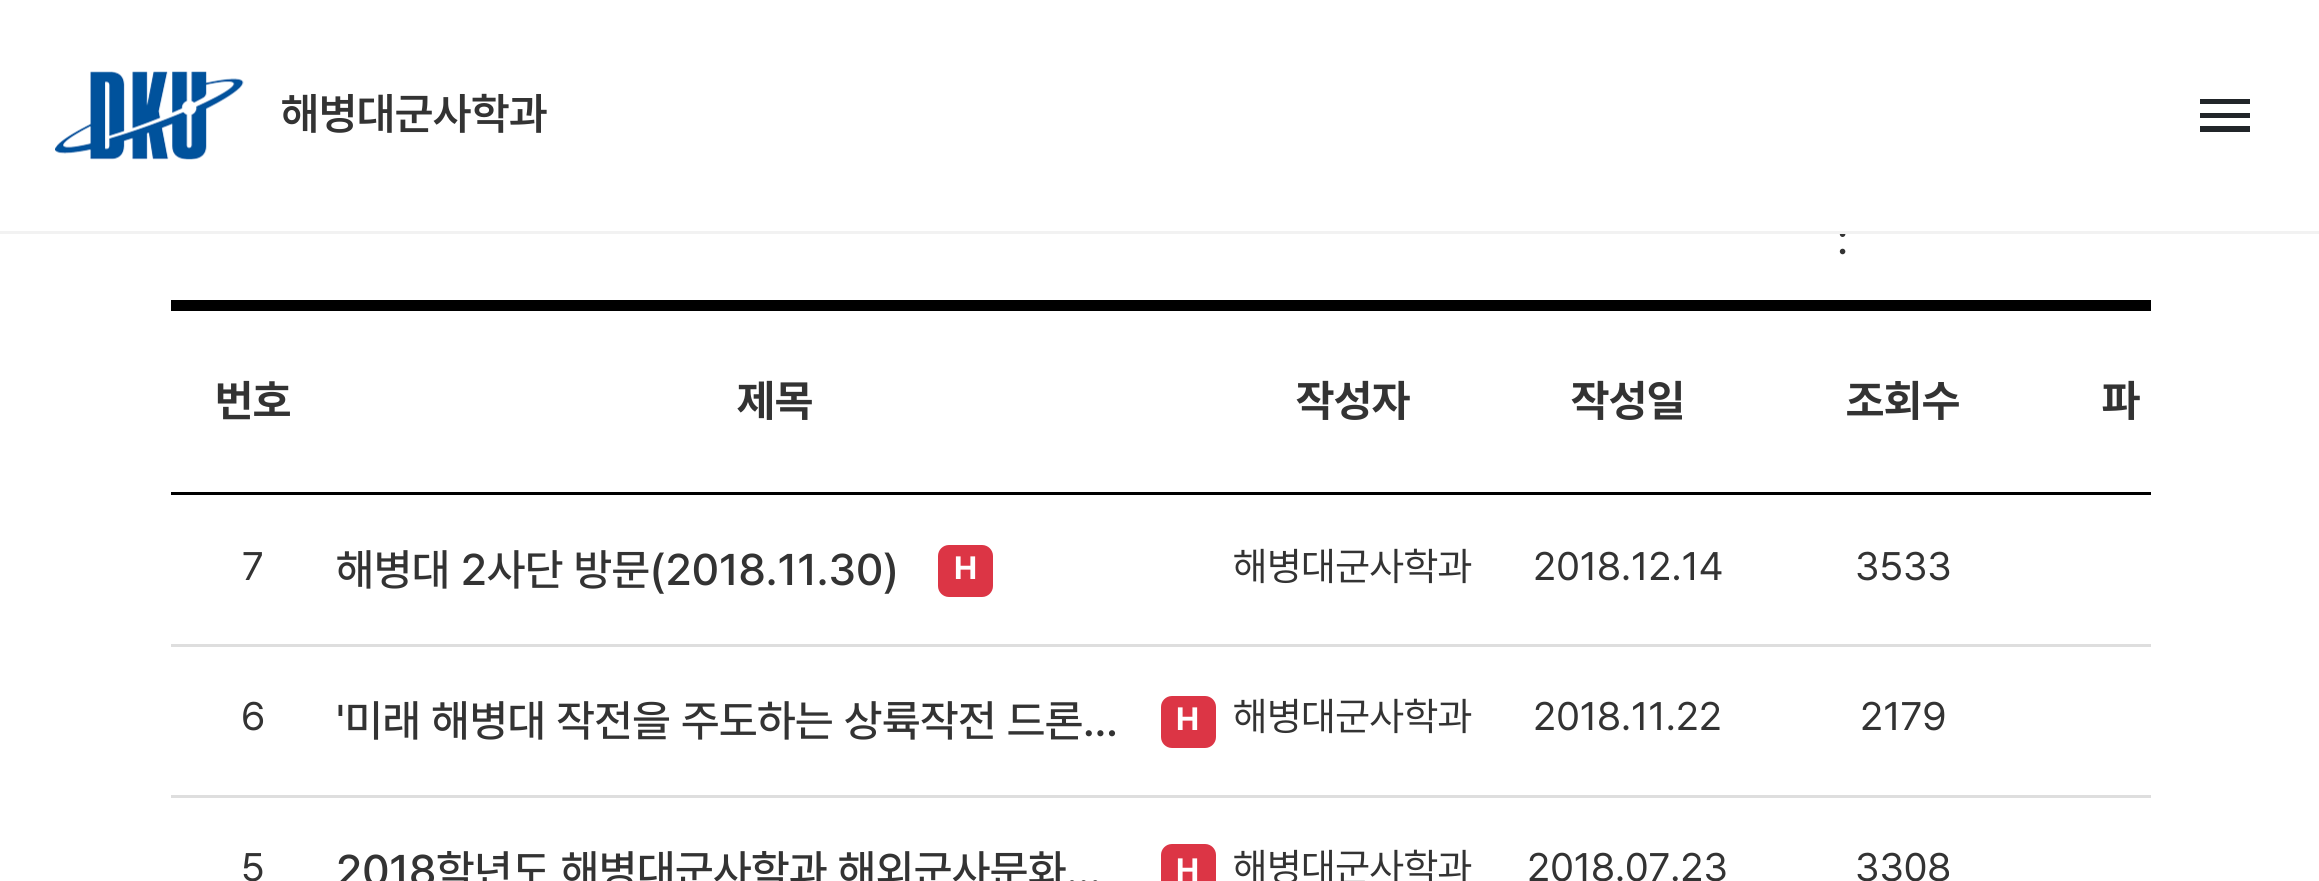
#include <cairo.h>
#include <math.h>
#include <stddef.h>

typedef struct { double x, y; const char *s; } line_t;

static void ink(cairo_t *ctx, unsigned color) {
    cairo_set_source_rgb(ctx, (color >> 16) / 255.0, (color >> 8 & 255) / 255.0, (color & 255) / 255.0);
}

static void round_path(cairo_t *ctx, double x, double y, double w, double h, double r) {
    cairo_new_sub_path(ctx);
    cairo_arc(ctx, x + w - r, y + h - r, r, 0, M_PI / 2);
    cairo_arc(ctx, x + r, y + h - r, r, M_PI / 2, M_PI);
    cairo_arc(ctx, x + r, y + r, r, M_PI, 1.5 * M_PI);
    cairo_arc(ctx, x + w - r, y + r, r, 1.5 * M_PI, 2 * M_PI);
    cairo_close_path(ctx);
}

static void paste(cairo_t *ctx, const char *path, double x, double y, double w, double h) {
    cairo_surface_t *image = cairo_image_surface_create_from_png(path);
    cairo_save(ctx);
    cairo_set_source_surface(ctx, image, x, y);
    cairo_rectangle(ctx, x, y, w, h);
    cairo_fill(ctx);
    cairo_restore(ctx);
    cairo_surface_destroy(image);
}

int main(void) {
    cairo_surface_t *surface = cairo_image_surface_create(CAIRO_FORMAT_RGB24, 2319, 881);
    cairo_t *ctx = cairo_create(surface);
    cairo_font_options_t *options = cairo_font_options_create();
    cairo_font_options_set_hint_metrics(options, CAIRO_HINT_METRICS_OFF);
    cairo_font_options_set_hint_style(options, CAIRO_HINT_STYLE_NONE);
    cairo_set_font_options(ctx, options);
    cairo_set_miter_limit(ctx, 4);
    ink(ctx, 0xFFFFFF);
    cairo_paint(ctx);
    cairo_select_font_face(ctx, "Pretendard", CAIRO_FONT_SLANT_NORMAL, CAIRO_FONT_WEIGHT_NORMAL);
    cairo_set_font_size(ctx, 44);
    ink(ctx, 0x333333);
    cairo_move_to(ctx, 1837, 254);
    cairo_show_text(ctx, ":");
    ink(ctx, 0xF2F2F2);
    cairo_rectangle(ctx, 0, 231, 2319, 3);
    cairo_fill(ctx);
    paste(ctx, "media/1.png", 55, 71, 189, 89);
    cairo_select_font_face(ctx, "Pretendard SemiBold", CAIRO_FONT_SLANT_NORMAL, CAIRO_FONT_WEIGHT_NORMAL);
    ink(ctx, 0x333333);
    cairo_move_to(ctx, 281, 129);
    cairo_show_text(ctx, "해병대군사학과");
    ink(ctx, 0x212529);
    cairo_new_path(ctx);
    cairo_move_to(ctx, 2200, 132);
    cairo_line_to(ctx, 2200, 126);
    cairo_line_to(ctx, 2250, 126);
    cairo_line_to(ctx, 2250, 132);
    cairo_close_path(ctx);
    cairo_move_to(ctx, 2200, 118);
    cairo_line_to(ctx, 2200, 113);
    cairo_line_to(ctx, 2250, 113);
    cairo_line_to(ctx, 2250, 118);
    cairo_close_path(ctx);
    cairo_move_to(ctx, 2200, 104);
    cairo_line_to(ctx, 2200, 99);
    cairo_line_to(ctx, 2250, 99);
    cairo_line_to(ctx, 2250, 104);
    cairo_close_path(ctx);
    cairo_fill(ctx);
    ink(ctx, 0x000000);
    cairo_rectangle(ctx, 171, 300, 1980, 11);
    cairo_fill(ctx);
    cairo_rectangle(ctx, 171, 492, 1980, 3);
    cairo_fill(ctx);
    cairo_select_font_face(ctx, "Pretendard", CAIRO_FONT_SLANT_NORMAL, CAIRO_FONT_WEIGHT_BOLD);
    ink(ctx, 0x333333);
    {
        static const line_t items[] = {
            {215, 416, "번호"},
            {737, 416, "제목"},
            {1296, 416, "작성자"},
            {1571, 416, "작성일"},
            {1846, 416, "조회수"},
            {2102, 416, "파"},
        };
        for (size_t i = 0; i < sizeof items / sizeof *items; i++) {
            cairo_move_to(ctx, items[i].x, items[i].y);
            cairo_show_text(ctx, items[i].s);
        }
    }
    ink(ctx, 0xDEDEDE);
    cairo_rectangle(ctx, 171, 644, 1980, 3);
    cairo_fill(ctx);
    cairo_select_font_face(ctx, "Pretendard", CAIRO_FONT_SLANT_NORMAL, CAIRO_FONT_WEIGHT_NORMAL);
    cairo_set_font_size(ctx, 39.5);
    ink(ctx, 0x333333);
    cairo_move_to(ctx, 242, 580);
    cairo_show_text(ctx, "7");
    cairo_select_font_face(ctx, "Pretendard Medium", CAIRO_FONT_SLANT_NORMAL, CAIRO_FONT_WEIGHT_NORMAL);
    cairo_set_font_size(ctx, 44);
    cairo_move_to(ctx, 336, 585);
    cairo_show_text(ctx, "해병대 2사단 방문(2018.11.30)");
    ink(ctx, 0xDC3545);
    round_path(ctx, 938, 545, 55, 52, 11);
    cairo_fill(ctx);
    cairo_select_font_face(ctx, "Pretendard", CAIRO_FONT_SLANT_NORMAL, CAIRO_FONT_WEIGHT_BOLD);
    cairo_set_font_size(ctx, 32);
    ink(ctx, 0xFFFFFF);
    cairo_move_to(ctx, 954, 579);
    cairo_show_text(ctx, "H");
    cairo_select_font_face(ctx, "Pretendard", CAIRO_FONT_SLANT_NORMAL, CAIRO_FONT_WEIGHT_NORMAL);
    cairo_set_font_size(ctx, 39.5);
    ink(ctx, 0x333333);
    {
        static const line_t items[] = {
            {1233, 580, "해병대군사학과"},
            {1533, 580, "2018.12.14"},
            {1855, 580, "3533"},
        };
        for (size_t i = 0; i < sizeof items / sizeof *items; i++) {
            cairo_move_to(ctx, items[i].x, items[i].y);
            cairo_show_text(ctx, items[i].s);
        }
    }
    ink(ctx, 0xDEDEDE);
    cairo_rectangle(ctx, 171, 795, 1980, 3);
    cairo_fill(ctx);
    ink(ctx, 0x333333);
    cairo_move_to(ctx, 241, 730);
    cairo_show_text(ctx, "6");
    cairo_select_font_face(ctx, "Pretendard Medium", CAIRO_FONT_SLANT_NORMAL, CAIRO_FONT_WEIGHT_NORMAL);
    cairo_set_font_size(ctx, 44);
    cairo_move_to(ctx, 336, 736);
    cairo_show_text(ctx, "'미래 해병대 작전을 주도하는 상륙작전 드론…");
    ink(ctx, 0xDC3545);
    round_path(ctx, 1161, 696, 55, 52, 11);
    cairo_fill(ctx);
    cairo_select_font_face(ctx, "Pretendard", CAIRO_FONT_SLANT_NORMAL, CAIRO_FONT_WEIGHT_BOLD);
    cairo_set_font_size(ctx, 32);
    ink(ctx, 0xFFFFFF);
    cairo_move_to(ctx, 1176, 730);
    cairo_show_text(ctx, "H");
    cairo_select_font_face(ctx, "Pretendard", CAIRO_FONT_SLANT_NORMAL, CAIRO_FONT_WEIGHT_NORMAL);
    cairo_set_font_size(ctx, 39.5);
    ink(ctx, 0x333333);
    {
        static const line_t items[] = {
            {1233, 730, "해병대군사학과"},
            {1533, 730, "2018.11.22"},
            {1860, 730, "2179"},
            {241, 881, "5"},
        };
        for (size_t i = 0; i < sizeof items / sizeof *items; i++) {
            cairo_move_to(ctx, items[i].x, items[i].y);
            cairo_show_text(ctx, items[i].s);
        }
    }
    cairo_select_font_face(ctx, "Pretendard Medium", CAIRO_FONT_SLANT_NORMAL, CAIRO_FONT_WEIGHT_NORMAL);
    cairo_set_font_size(ctx, 44);
    cairo_move_to(ctx, 336, 886);
    cairo_show_text(ctx, "2018학년도 해병대군사학과 해외군사문화…");
    ink(ctx, 0xDC3545);
    round_path(ctx, 1161, 844, 55, 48, 11);
    cairo_fill(ctx);
    cairo_select_font_face(ctx, "Pretendard", CAIRO_FONT_SLANT_NORMAL, CAIRO_FONT_WEIGHT_BOLD);
    cairo_set_font_size(ctx, 32);
    ink(ctx, 0xFFFFFF);
    cairo_move_to(ctx, 1176, 881);
    cairo_show_text(ctx, "H");
    cairo_select_font_face(ctx, "Pretendard", CAIRO_FONT_SLANT_NORMAL, CAIRO_FONT_WEIGHT_NORMAL);
    cairo_set_font_size(ctx, 39.5);
    ink(ctx, 0x333333);
    {
        static const line_t items[] = {
            {1233, 881, "해병대군사학과"},
            {1527, 881, "2018.07.23"},
            {1855, 881, "3308"},
        };
        for (size_t i = 0; i < sizeof items / sizeof *items; i++) {
            cairo_move_to(ctx, items[i].x, items[i].y);
            cairo_show_text(ctx, items[i].s);
        }
    }
    cairo_surface_write_to_png(surface, "image.png");
    cairo_font_options_destroy(options);
    cairo_destroy(ctx);
    cairo_surface_destroy(surface);
    return 0;
}
